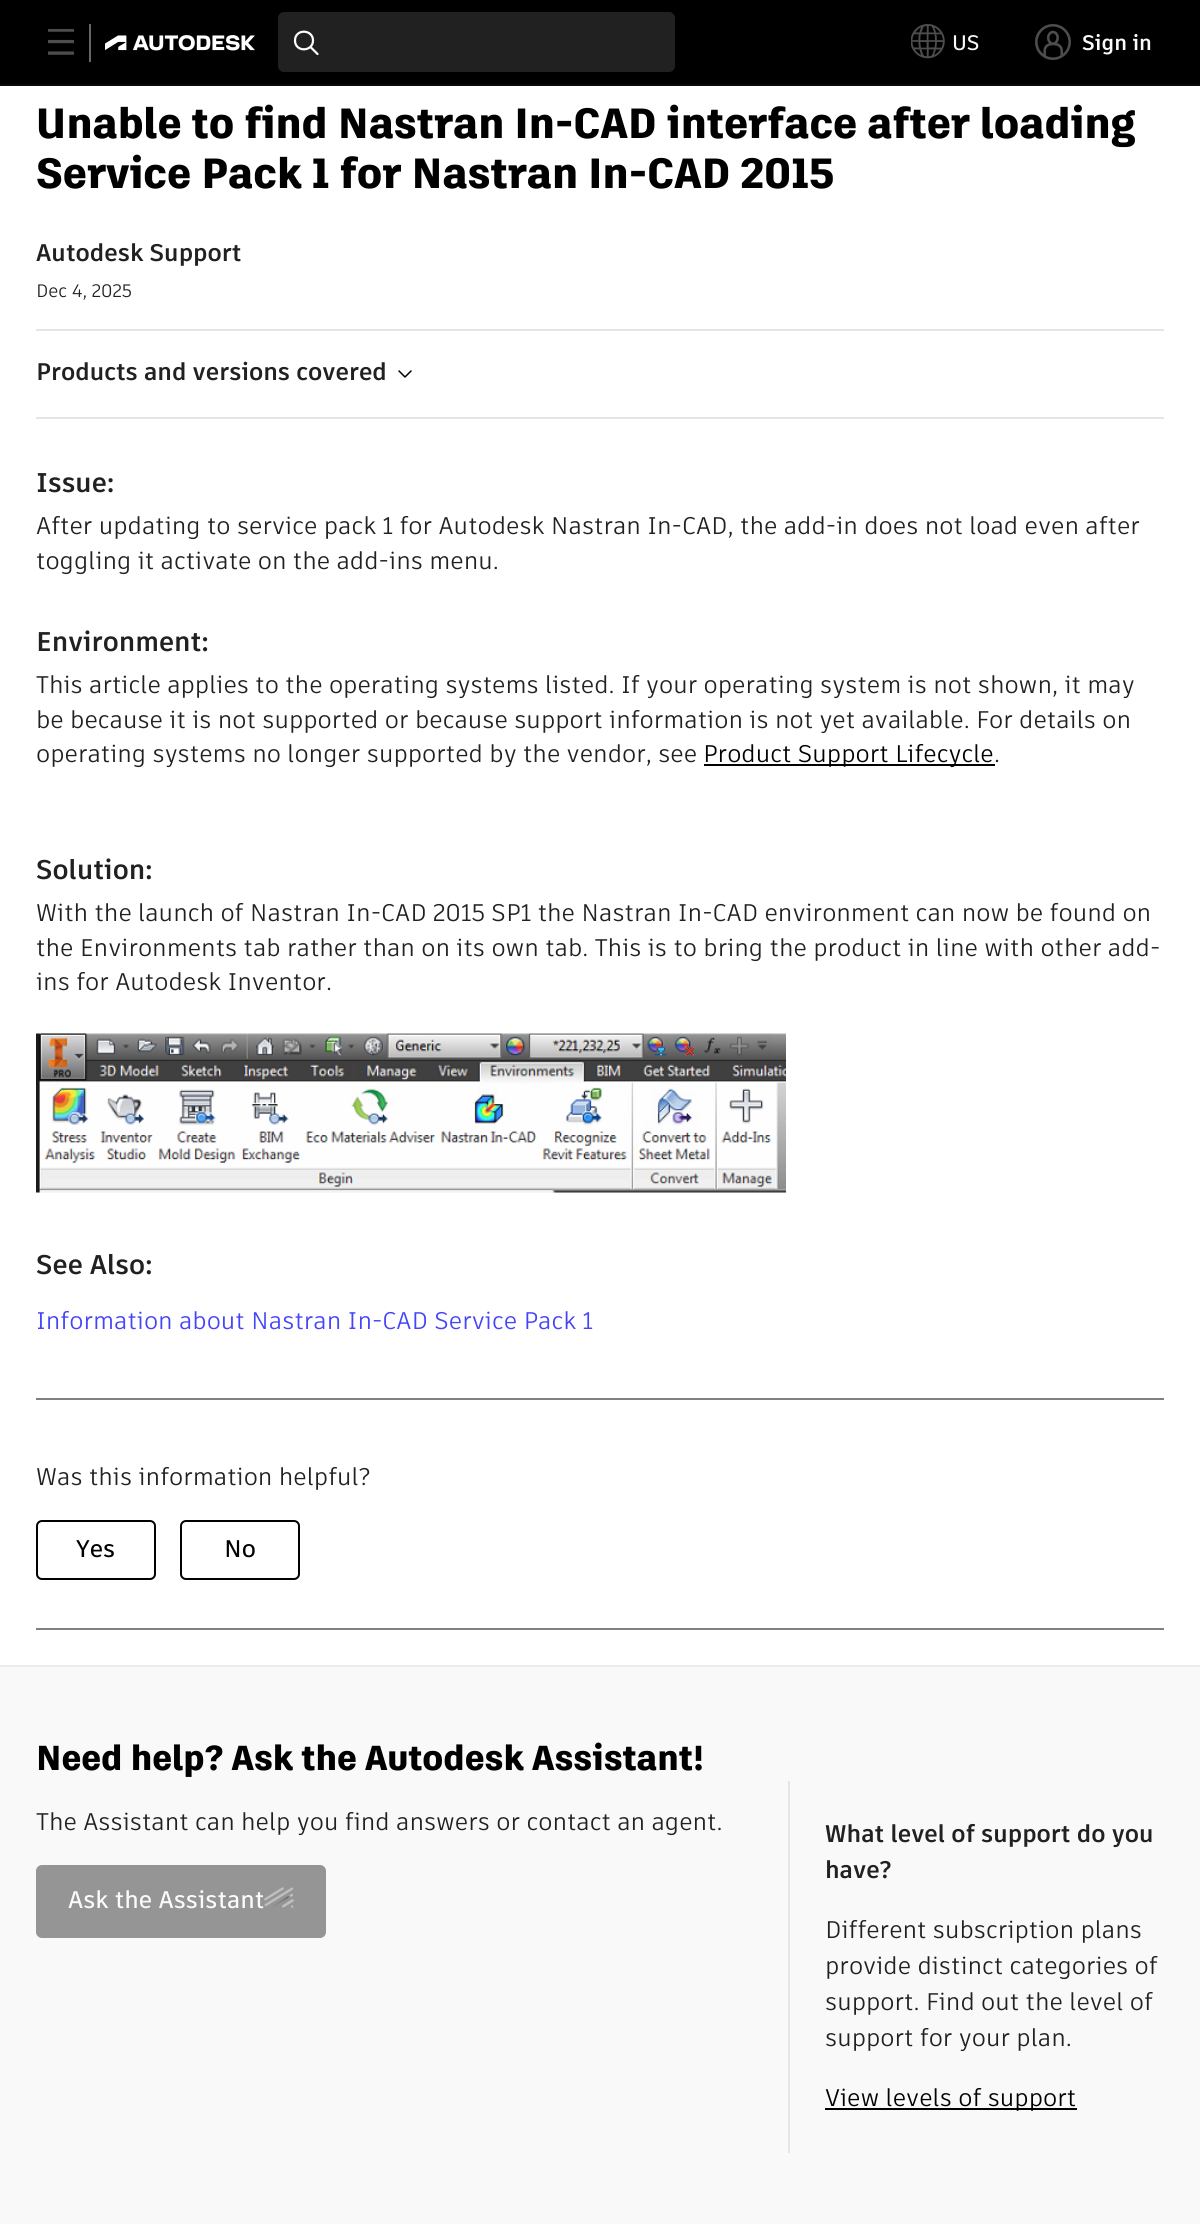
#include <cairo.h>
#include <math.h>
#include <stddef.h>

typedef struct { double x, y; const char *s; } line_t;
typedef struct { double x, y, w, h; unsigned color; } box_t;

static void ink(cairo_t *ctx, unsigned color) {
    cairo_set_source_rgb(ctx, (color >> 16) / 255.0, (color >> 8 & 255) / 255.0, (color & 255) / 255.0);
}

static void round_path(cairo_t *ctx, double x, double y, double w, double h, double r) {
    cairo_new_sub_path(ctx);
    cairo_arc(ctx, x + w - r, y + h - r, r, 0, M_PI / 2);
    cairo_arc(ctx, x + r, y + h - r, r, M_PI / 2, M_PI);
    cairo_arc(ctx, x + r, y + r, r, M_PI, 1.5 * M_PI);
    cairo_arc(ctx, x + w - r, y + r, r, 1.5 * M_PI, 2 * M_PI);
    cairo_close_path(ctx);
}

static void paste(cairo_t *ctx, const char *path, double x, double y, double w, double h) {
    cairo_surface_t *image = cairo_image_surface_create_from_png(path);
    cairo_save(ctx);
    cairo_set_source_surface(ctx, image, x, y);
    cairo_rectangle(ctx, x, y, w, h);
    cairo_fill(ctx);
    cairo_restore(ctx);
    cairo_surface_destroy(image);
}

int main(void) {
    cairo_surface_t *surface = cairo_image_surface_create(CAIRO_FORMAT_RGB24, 1200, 2224);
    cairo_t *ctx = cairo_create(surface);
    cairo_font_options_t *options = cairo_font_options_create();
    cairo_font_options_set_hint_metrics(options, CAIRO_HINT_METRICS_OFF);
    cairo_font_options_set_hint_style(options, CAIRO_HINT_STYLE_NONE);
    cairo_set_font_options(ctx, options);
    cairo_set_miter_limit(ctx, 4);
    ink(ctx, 0xFFFFFF);
    cairo_paint(ctx);
    ink(ctx, 0x000000);
    cairo_rectangle(ctx, 0, 0, 1200, 84);
    cairo_fill(ctx);
    ink(ctx, 0x0A0A0A);
    cairo_rectangle(ctx, 0, 84, 1200, 2);
    cairo_fill(ctx);
    paste(ctx, "media/1.png", 48, 29, 26, 26);
    ink(ctx, 0x666666);
    cairo_rectangle(ctx, 89, 24, 2, 38);
    cairo_fill(ctx);
    paste(ctx, "media/2.png", 105, 35, 150, 16);
    ink(ctx, 0x212121);
    round_path(ctx, 278, 12, 397, 60, 6);
    cairo_fill(ctx);
    cairo_new_path(ctx);
    cairo_move_to(ctx, 310.5, 47);
    cairo_line_to(ctx, 317.5, 54);
    cairo_move_to(ctx, 313, 40.5);
    cairo_curve_to(ctx, 313, 52, 295, 52.5, 295, 40.5);
    cairo_curve_to(ctx, 295, 28.5, 313, 29, 313, 40.5);
    cairo_close_path(ctx);
    ink(ctx, 0xFFFFFF);
    cairo_set_line_width(ctx, 2.2);
    cairo_set_line_cap(ctx, CAIRO_LINE_CAP_ROUND);
    cairo_stroke(ctx);
    paste(ctx, "media/3.png", 911, 24, 34, 35);
    cairo_select_font_face(ctx, "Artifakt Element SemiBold", CAIRO_FONT_SLANT_NORMAL, CAIRO_FONT_WEIGHT_NORMAL);
    cairo_set_font_size(ctx, 21);
    ink(ctx, 0xFBFBFB);
    cairo_move_to(ctx, 952, 50);
    cairo_show_text(ctx, "US");
    paste(ctx, "media/4.png", 1035, 24, 36, 36);
    cairo_select_font_face(ctx, "Artifakt Element", CAIRO_FONT_SLANT_NORMAL, CAIRO_FONT_WEIGHT_BOLD);
    cairo_move_to(ctx, 1082, 50);
    cairo_show_text(ctx, "Sign in");
    cairo_select_font_face(ctx, "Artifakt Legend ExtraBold", CAIRO_FONT_SLANT_NORMAL, CAIRO_FONT_WEIGHT_NORMAL);
    cairo_set_font_size(ctx, 42.1);
    ink(ctx, 0x000000);
    cairo_move_to(ctx, 36, 138);
    cairo_show_text(ctx, "Unable to find Nastran In-CAD interface after loading");
    cairo_move_to(ctx, 36, 188);
    cairo_show_text(ctx, "Service Pack 1 for Nastran In-CAD 2015");
    cairo_select_font_face(ctx, "Artifakt Element", CAIRO_FONT_SLANT_NORMAL, CAIRO_FONT_WEIGHT_BOLD);
    cairo_set_font_size(ctx, 24);
    ink(ctx, 0x212121);
    cairo_move_to(ctx, 36, 261);
    cairo_show_text(ctx, "Autodesk Support");
    cairo_select_font_face(ctx, "Artifakt Element", CAIRO_FONT_SLANT_NORMAL, CAIRO_FONT_WEIGHT_NORMAL);
    cairo_set_font_size(ctx, 18);
    cairo_move_to(ctx, 36, 297);
    cairo_show_text(ctx, "Dec 4, 2025");
    ink(ctx, 0xE5E5E5);
    cairo_rectangle(ctx, 36, 329, 1128, 2);
    cairo_fill(ctx);
    cairo_select_font_face(ctx, "Artifakt Element", CAIRO_FONT_SLANT_NORMAL, CAIRO_FONT_WEIGHT_BOLD);
    cairo_set_font_size(ctx, 24);
    ink(ctx, 0x212121);
    cairo_move_to(ctx, 36, 380);
    cairo_show_text(ctx, "Products and versions covered");
    cairo_new_path(ctx);
    cairo_move_to(ctx, 411, 371);
    cairo_line_to(ctx, 405, 377);
    cairo_line_to(ctx, 399, 371);
    ink(ctx, 0x000000);
    cairo_set_line_width(ctx, 1.5);
    cairo_set_line_join(ctx, CAIRO_LINE_JOIN_ROUND);
    cairo_stroke(ctx);
    ink(ctx, 0xE5E5E5);
    cairo_rectangle(ctx, 36, 417, 1128, 2);
    cairo_fill(ctx);
    cairo_set_font_size(ctx, 27);
    ink(ctx, 0x212121);
    cairo_move_to(ctx, 36, 492);
    cairo_show_text(ctx, "Issue:");
    cairo_select_font_face(ctx, "Artifakt Element", CAIRO_FONT_SLANT_NORMAL, CAIRO_FONT_WEIGHT_NORMAL);
    cairo_set_font_size(ctx, 24);
    cairo_move_to(ctx, 36, 534);
    cairo_show_text(ctx, "After updating to service pack 1 for Autodesk Nastran In-CAD, the add-in does not load even after");
    cairo_move_to(ctx, 36, 569);
    cairo_show_text(ctx, "toggling it activate on the add-ins menu.");
    cairo_select_font_face(ctx, "Artifakt Element", CAIRO_FONT_SLANT_NORMAL, CAIRO_FONT_WEIGHT_BOLD);
    cairo_set_font_size(ctx, 27);
    cairo_move_to(ctx, 36, 651);
    cairo_show_text(ctx, "Environment:");
    cairo_select_font_face(ctx, "Artifakt Element", CAIRO_FONT_SLANT_NORMAL, CAIRO_FONT_WEIGHT_NORMAL);
    cairo_set_font_size(ctx, 24);
    {
        static const line_t items[] = {
            {36, 693, "This article applies to the operating systems listed. If your operating system is not shown, it may"},
            {36, 728, "be because it is not supported or because support information is not yet available. For details on"},
            {36, 762, "operating systems no longer supported by the vendor, see"},
        };
        for (size_t i = 0; i < sizeof items / sizeof *items; i++) {
            cairo_move_to(ctx, items[i].x, items[i].y);
            cairo_show_text(ctx, items[i].s);
        }
    }
    ink(ctx, 0x000000);
    cairo_rectangle(ctx, 704, 764, 291, 2);
    cairo_fill(ctx);
    cairo_move_to(ctx, 703, 762);
    cairo_show_text(ctx, "Product Support Lifecycle");
    ink(ctx, 0x212121);
    cairo_move_to(ctx, 994, 762);
    cairo_show_text(ctx, ".");
    cairo_select_font_face(ctx, "Artifakt Element", CAIRO_FONT_SLANT_NORMAL, CAIRO_FONT_WEIGHT_BOLD);
    cairo_set_font_size(ctx, 27);
    cairo_move_to(ctx, 36, 879);
    cairo_show_text(ctx, "Solution:");
    cairo_select_font_face(ctx, "Artifakt Element", CAIRO_FONT_SLANT_NORMAL, CAIRO_FONT_WEIGHT_NORMAL);
    cairo_set_font_size(ctx, 24);
    {
        static const line_t items[] = {
            {36, 921, "With the launch of Nastran In-CAD 2015 SP1 the Nastran In-CAD environment can now be found on"},
            {36, 956, "the Environments tab rather than on its own tab. This is to bring the product in line with other add-"},
            {36, 990, "ins for Autodesk Inventor."},
        };
        for (size_t i = 0; i < sizeof items / sizeof *items; i++) {
            cairo_move_to(ctx, items[i].x, items[i].y);
            cairo_show_text(ctx, items[i].s);
        }
    }
    paste(ctx, "media/5.png", 36, 1033, 750, 160);
    cairo_select_font_face(ctx, "Artifakt Element", CAIRO_FONT_SLANT_NORMAL, CAIRO_FONT_WEIGHT_BOLD);
    cairo_set_font_size(ctx, 27);
    cairo_move_to(ctx, 36, 1274);
    cairo_show_text(ctx, "See Also:");
    cairo_select_font_face(ctx, "Artifakt Element", CAIRO_FONT_SLANT_NORMAL, CAIRO_FONT_WEIGHT_NORMAL);
    cairo_set_font_size(ctx, 24);
    ink(ctx, 0x4444F8);
    cairo_move_to(ctx, 36, 1329);
    cairo_show_text(ctx, "Information about Nastran In-CAD Service Pack 1");
    ink(ctx, 0x808080);
    cairo_rectangle(ctx, 36, 1398, 1128, 2);
    cairo_fill(ctx);
    ink(ctx, 0x212121);
    cairo_move_to(ctx, 36, 1485);
    cairo_show_text(ctx, "Was this information helpful?");
    round_path(ctx, 37, 1521, 118, 58, 5);
    ink(ctx, 0x000000);
    cairo_set_line_width(ctx, 2);
    cairo_set_line_cap(ctx, CAIRO_LINE_CAP_BUTT);
    cairo_set_line_join(ctx, CAIRO_LINE_JOIN_MITER);
    cairo_stroke(ctx);
    cairo_select_font_face(ctx, "Artifakt Element SemiBold", CAIRO_FONT_SLANT_NORMAL, CAIRO_FONT_WEIGHT_NORMAL);
    cairo_move_to(ctx, 76, 1557);
    cairo_show_text(ctx, "Yes");
    round_path(ctx, 181, 1521, 118, 58, 5);
    cairo_stroke(ctx);
    cairo_move_to(ctx, 224, 1557);
    cairo_show_text(ctx, "No");
    {
        static const box_t items[] = {
            {36, 1628, 1128, 2, 0x808080},
            {0, 1665, 1200, 2, 0xEBEBEB},
            {0, 1667, 1200, 557, 0xF9F9F9},
        };
        for (size_t i = 0; i < sizeof items / sizeof *items; i++) {
            ink(ctx, items[i].color);
            cairo_rectangle(ctx, items[i].x, items[i].y, items[i].w, items[i].h);
            cairo_fill(ctx);
        }
    }
    cairo_select_font_face(ctx, "Artifakt Legend ExtraBold", CAIRO_FONT_SLANT_NORMAL, CAIRO_FONT_WEIGHT_NORMAL);
    cairo_set_font_size(ctx, 34.6);
    ink(ctx, 0x000000);
    cairo_move_to(ctx, 36, 1770);
    cairo_show_text(ctx, "Need help? Ask the Autodesk Assistant!");
    cairo_select_font_face(ctx, "Artifakt Element", CAIRO_FONT_SLANT_NORMAL, CAIRO_FONT_WEIGHT_NORMAL);
    cairo_set_font_size(ctx, 24);
    ink(ctx, 0x212121);
    cairo_move_to(ctx, 36, 1830);
    cairo_show_text(ctx, "The Assistant can help you find answers or contact an agent.");
    ink(ctx, 0x959595);
    round_path(ctx, 37, 1866, 288, 71, 5);
    cairo_fill_preserve(ctx);
    cairo_stroke(ctx);
    cairo_select_font_face(ctx, "Artifakt Element SemiBold", CAIRO_FONT_SLANT_NORMAL, CAIRO_FONT_WEIGHT_NORMAL);
    ink(ctx, 0xFBFBFB);
    cairo_move_to(ctx, 68, 1908);
    cairo_show_text(ctx, "Ask the Assistant");
    paste(ctx, "media/6.png", 264, 1887, 30, 21);
    ink(ctx, 0xE5E5E5);
    cairo_rectangle(ctx, 788, 1781, 2, 372);
    cairo_fill(ctx);
    cairo_select_font_face(ctx, "Artifakt Element", CAIRO_FONT_SLANT_NORMAL, CAIRO_FONT_WEIGHT_BOLD);
    ink(ctx, 0x212121);
    cairo_move_to(ctx, 825, 1842);
    cairo_show_text(ctx, "What level of support do you");
    cairo_move_to(ctx, 825, 1878);
    cairo_show_text(ctx, "have?");
    cairo_select_font_face(ctx, "Artifakt Element", CAIRO_FONT_SLANT_NORMAL, CAIRO_FONT_WEIGHT_NORMAL);
    {
        static const line_t items[] = {
            {825, 1938, "Different subscription plans"},
            {825, 1974, "provide distinct categories of"},
            {825, 2010, "support. Find out the level of"},
            {825, 2046, "support for your plan."},
        };
        for (size_t i = 0; i < sizeof items / sizeof *items; i++) {
            cairo_move_to(ctx, items[i].x, items[i].y);
            cairo_show_text(ctx, items[i].s);
        }
    }
    ink(ctx, 0x000000);
    cairo_rectangle(ctx, 825, 2108, 252, 2);
    cairo_fill(ctx);
    cairo_move_to(ctx, 825, 2106);
    cairo_show_text(ctx, "View levels of support");
    cairo_surface_write_to_png(surface, "image.png");
    cairo_font_options_destroy(options);
    cairo_destroy(ctx);
    cairo_surface_destroy(surface);
    return 0;
}
